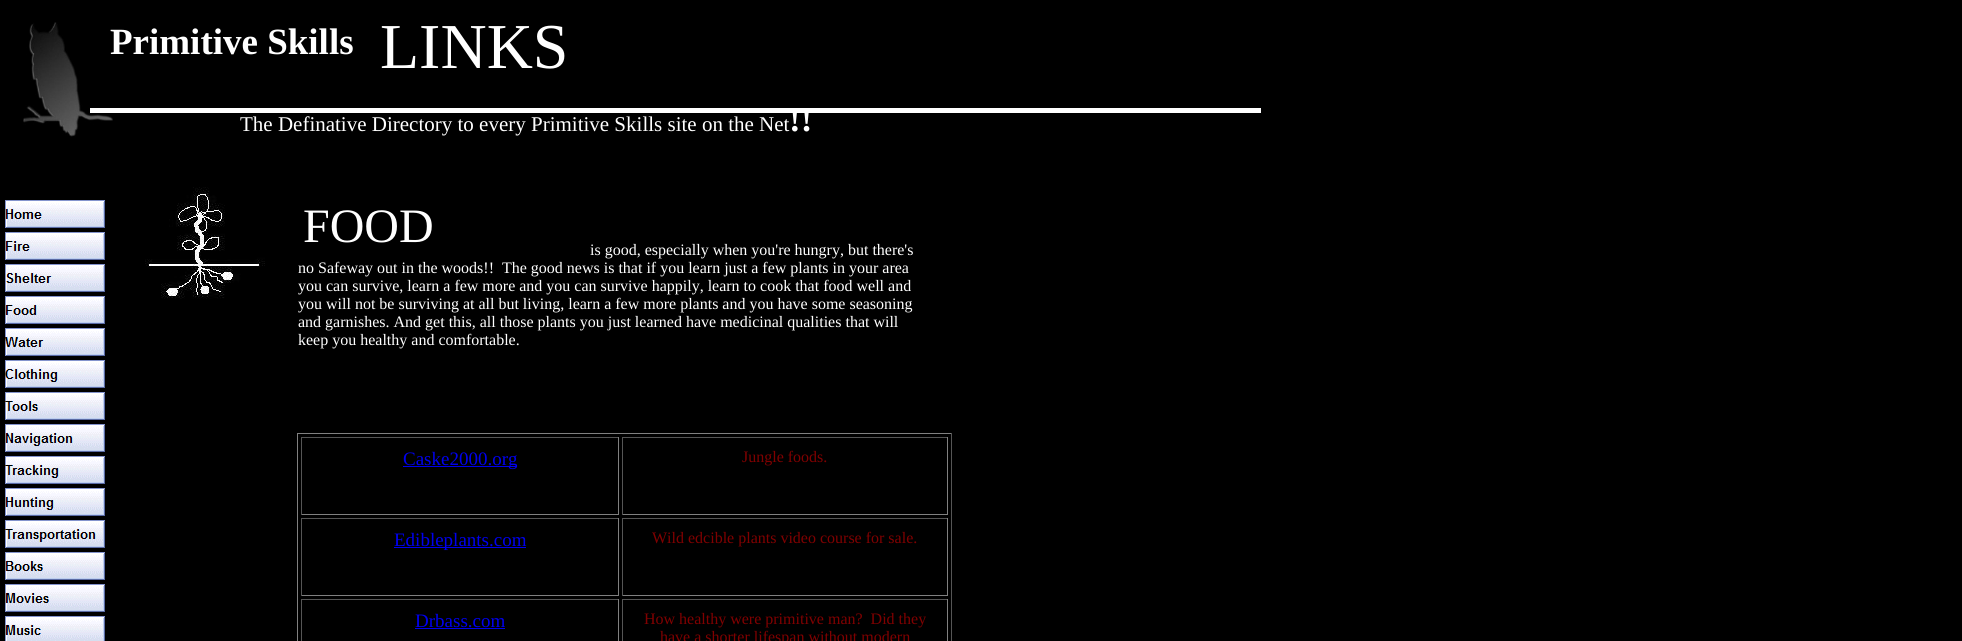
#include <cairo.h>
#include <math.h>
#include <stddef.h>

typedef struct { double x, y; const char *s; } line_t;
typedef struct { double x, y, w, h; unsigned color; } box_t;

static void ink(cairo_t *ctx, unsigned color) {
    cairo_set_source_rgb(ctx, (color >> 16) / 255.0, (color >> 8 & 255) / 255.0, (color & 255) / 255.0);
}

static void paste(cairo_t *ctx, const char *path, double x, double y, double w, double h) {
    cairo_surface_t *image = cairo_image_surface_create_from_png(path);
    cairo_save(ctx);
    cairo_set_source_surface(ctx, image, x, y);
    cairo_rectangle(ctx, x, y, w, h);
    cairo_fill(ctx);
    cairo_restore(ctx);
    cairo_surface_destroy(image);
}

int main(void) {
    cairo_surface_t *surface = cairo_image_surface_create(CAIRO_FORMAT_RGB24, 1962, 641);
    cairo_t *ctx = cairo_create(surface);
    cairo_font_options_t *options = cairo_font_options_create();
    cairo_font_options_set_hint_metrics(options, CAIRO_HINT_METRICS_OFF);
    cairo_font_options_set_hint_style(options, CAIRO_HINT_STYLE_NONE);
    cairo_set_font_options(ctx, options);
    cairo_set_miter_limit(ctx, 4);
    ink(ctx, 0x000000);
    cairo_paint(ctx);
    paste(ctx, "media/1.png", 23, 22, 90, 115);
    cairo_select_font_face(ctx, "Liberation Serif", CAIRO_FONT_SLANT_NORMAL, CAIRO_FONT_WEIGHT_BOLD);
    cairo_set_font_size(ctx, 37);
    ink(ctx, 0xFFFFFF);
    cairo_move_to(ctx, 110, 54);
    cairo_show_text(ctx, "Primitive Skills");
    cairo_select_font_face(ctx, "Liberation Serif", CAIRO_FONT_SLANT_NORMAL, CAIRO_FONT_WEIGHT_NORMAL);
    cairo_set_font_size(ctx, 64);
    cairo_move_to(ctx, 380, 68);
    cairo_show_text(ctx, "LINKS");
    cairo_rectangle(ctx, 90, 108, 1171, 5);
    cairo_fill(ctx);
    cairo_set_font_size(ctx, 21);
    cairo_move_to(ctx, 240, 131);
    cairo_show_text(ctx, "The Definative Directory to every Primitive Skills site on the Net");
    cairo_select_font_face(ctx, "Liberation Serif", CAIRO_FONT_SLANT_NORMAL, CAIRO_FONT_WEIGHT_BOLD);
    cairo_set_font_size(ctx, 35);
    cairo_move_to(ctx, 789, 131);
    cairo_show_text(ctx, "!!");
    paste(ctx, "media/2.png", 5, 200, 100, 28);
    paste(ctx, "media/3.png", 5, 232, 100, 28);
    paste(ctx, "media/4.png", 5, 264, 100, 28);
    paste(ctx, "media/5.png", 5, 296, 100, 28);
    paste(ctx, "media/6.png", 5, 328, 100, 28);
    paste(ctx, "media/7.png", 5, 360, 100, 28);
    paste(ctx, "media/8.png", 5, 392, 100, 28);
    paste(ctx, "media/9.png", 5, 424, 100, 28);
    paste(ctx, "media/10.png", 5, 456, 100, 28);
    paste(ctx, "media/11.png", 5, 488, 100, 28);
    paste(ctx, "media/12.png", 5, 520, 100, 28);
    paste(ctx, "media/13.png", 5, 552, 100, 28);
    paste(ctx, "media/14.png", 5, 584, 100, 28);
    paste(ctx, "media/15.png", 5, 616, 100, 25);
    paste(ctx, "media/16.png", 145, 187, 120, 112);
    cairo_select_font_face(ctx, "Liberation Serif", CAIRO_FONT_SLANT_NORMAL, CAIRO_FONT_WEIGHT_NORMAL);
    cairo_set_font_size(ctx, 48);
    cairo_move_to(ctx, 303, 242);
    cairo_show_text(ctx, "FOOD");
    cairo_set_font_size(ctx, 16);
    {
        static const line_t items[] = {
            {590, 255, "is good, especially when you're hungry, but there's"},
            {298, 273, "no Safeway out in the woods!!  The good news is that if you learn just a few plants in your area"},
            {298, 291, "you can survive, learn a few more and you can survive happily, learn to cook that food well and"},
            {298, 309, "you will not be surviving at all but living, learn a few more plants and you have some seasoning"},
            {298, 327, "and garnishes. And get this, all those plants you just learned have medicinal qualities that will"},
            {298, 345, "keep you healthy and comfortable."},
        };
        for (size_t i = 0; i < sizeof items / sizeof *items; i++) {
            cairo_move_to(ctx, items[i].x, items[i].y);
            cairo_show_text(ctx, items[i].s);
        }
    }
    {
        static const box_t items[] = {
            {297, 433, 655, 1, 0x808080},
            {951, 433, 1, 208, 0x555555},
            {297, 433, 1, 208, 0x808080},
            {301, 437, 318, 1, 0x555555},
            {618, 437, 1, 78, 0x808080},
            {301, 514, 318, 1, 0x808080},
            {301, 437, 1, 78, 0x555555},
            {403, 466, 114, 1, 0x0000EE},
        };
        for (size_t i = 0; i < sizeof items / sizeof *items; i++) {
            ink(ctx, items[i].color);
            cairo_rectangle(ctx, items[i].x, items[i].y, items[i].w, items[i].h);
            cairo_fill(ctx);
        }
    }
    cairo_set_font_size(ctx, 19);
    cairo_move_to(ctx, 403, 465);
    cairo_show_text(ctx, "Caske2000.org");
    {
        static const box_t items[] = {
            {622, 437, 326, 1, 0x555555},
            {947, 437, 1, 78, 0x808080},
            {622, 514, 326, 1, 0x808080},
            {622, 437, 1, 78, 0x555555},
        };
        for (size_t i = 0; i < sizeof items / sizeof *items; i++) {
            ink(ctx, items[i].color);
            cairo_rectangle(ctx, items[i].x, items[i].y, items[i].w, items[i].h);
            cairo_fill(ctx);
        }
    }
    cairo_set_font_size(ctx, 16);
    ink(ctx, 0x800000);
    cairo_move_to(ctx, 742, 462);
    cairo_show_text(ctx, "Jungle foods.");
    {
        static const box_t items[] = {
            {301, 518, 318, 1, 0x555555},
            {618, 518, 1, 78, 0x808080},
            {301, 595, 318, 1, 0x808080},
            {301, 518, 1, 78, 0x555555},
            {394, 547, 132, 1, 0x0000EE},
        };
        for (size_t i = 0; i < sizeof items / sizeof *items; i++) {
            ink(ctx, items[i].color);
            cairo_rectangle(ctx, items[i].x, items[i].y, items[i].w, items[i].h);
            cairo_fill(ctx);
        }
    }
    cairo_set_font_size(ctx, 19);
    cairo_move_to(ctx, 394, 546);
    cairo_show_text(ctx, "Edibleplants.com");
    {
        static const box_t items[] = {
            {622, 518, 326, 1, 0x555555},
            {947, 518, 1, 78, 0x808080},
            {622, 595, 326, 1, 0x808080},
            {622, 518, 1, 78, 0x555555},
        };
        for (size_t i = 0; i < sizeof items / sizeof *items; i++) {
            ink(ctx, items[i].color);
            cairo_rectangle(ctx, items[i].x, items[i].y, items[i].w, items[i].h);
            cairo_fill(ctx);
        }
    }
    cairo_set_font_size(ctx, 16);
    ink(ctx, 0x800000);
    cairo_move_to(ctx, 652, 543);
    cairo_show_text(ctx, "Wild edcible plants video course for sale.");
    {
        static const box_t items[] = {
            {301, 599, 318, 1, 0x555555},
            {618, 599, 1, 42, 0x808080},
            {301, 599, 1, 42, 0x555555},
        };
        for (size_t i = 0; i < sizeof items / sizeof *items; i++) {
            ink(ctx, items[i].color);
            cairo_rectangle(ctx, items[i].x, items[i].y, items[i].w, items[i].h);
            cairo_fill(ctx);
        }
    }
    cairo_set_font_size(ctx, 19);
    ink(ctx, 0x0000EE);
    cairo_move_to(ctx, 415, 627);
    cairo_show_text(ctx, "Drbass.com");
    {
        static const box_t items[] = {
            {415, 628, 90, 1, 0x0000EE},
            {622, 599, 326, 1, 0x555555},
            {947, 599, 1, 42, 0x808080},
            {622, 599, 1, 42, 0x555555},
        };
        for (size_t i = 0; i < sizeof items / sizeof *items; i++) {
            ink(ctx, items[i].color);
            cairo_rectangle(ctx, items[i].x, items[i].y, items[i].w, items[i].h);
            cairo_fill(ctx);
        }
    }
    cairo_set_font_size(ctx, 16);
    ink(ctx, 0x800000);
    cairo_move_to(ctx, 644, 624);
    cairo_show_text(ctx, "How healthy were primitive man?  Did they");
    cairo_move_to(ctx, 660, 642);
    cairo_show_text(ctx, "have a shorter lifespan without modern");
    cairo_surface_write_to_png(surface, "image.png");
    cairo_font_options_destroy(options);
    cairo_destroy(ctx);
    cairo_surface_destroy(surface);
    return 0;
}
